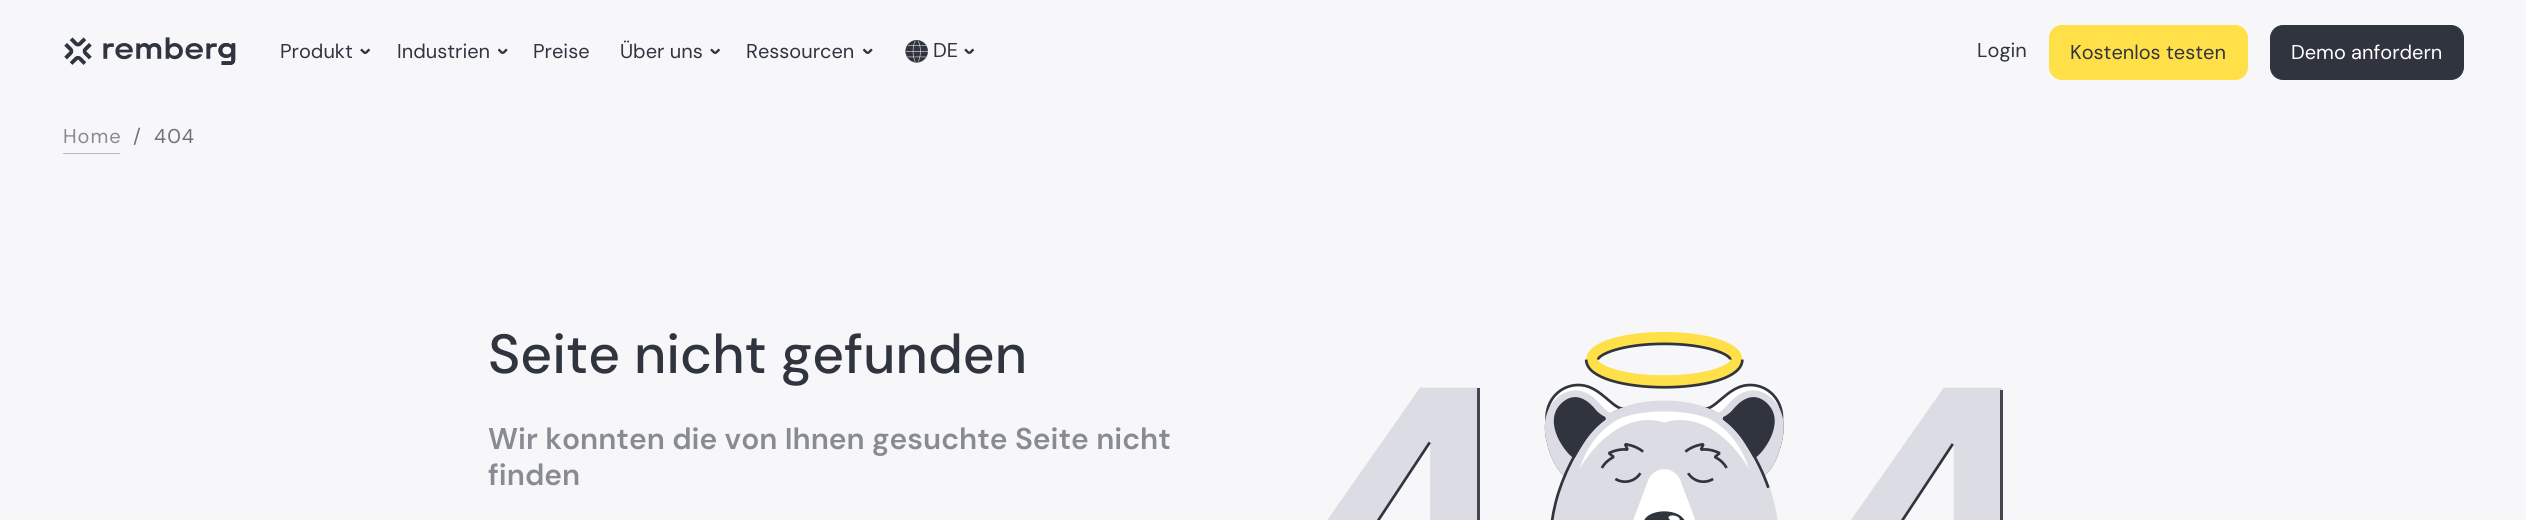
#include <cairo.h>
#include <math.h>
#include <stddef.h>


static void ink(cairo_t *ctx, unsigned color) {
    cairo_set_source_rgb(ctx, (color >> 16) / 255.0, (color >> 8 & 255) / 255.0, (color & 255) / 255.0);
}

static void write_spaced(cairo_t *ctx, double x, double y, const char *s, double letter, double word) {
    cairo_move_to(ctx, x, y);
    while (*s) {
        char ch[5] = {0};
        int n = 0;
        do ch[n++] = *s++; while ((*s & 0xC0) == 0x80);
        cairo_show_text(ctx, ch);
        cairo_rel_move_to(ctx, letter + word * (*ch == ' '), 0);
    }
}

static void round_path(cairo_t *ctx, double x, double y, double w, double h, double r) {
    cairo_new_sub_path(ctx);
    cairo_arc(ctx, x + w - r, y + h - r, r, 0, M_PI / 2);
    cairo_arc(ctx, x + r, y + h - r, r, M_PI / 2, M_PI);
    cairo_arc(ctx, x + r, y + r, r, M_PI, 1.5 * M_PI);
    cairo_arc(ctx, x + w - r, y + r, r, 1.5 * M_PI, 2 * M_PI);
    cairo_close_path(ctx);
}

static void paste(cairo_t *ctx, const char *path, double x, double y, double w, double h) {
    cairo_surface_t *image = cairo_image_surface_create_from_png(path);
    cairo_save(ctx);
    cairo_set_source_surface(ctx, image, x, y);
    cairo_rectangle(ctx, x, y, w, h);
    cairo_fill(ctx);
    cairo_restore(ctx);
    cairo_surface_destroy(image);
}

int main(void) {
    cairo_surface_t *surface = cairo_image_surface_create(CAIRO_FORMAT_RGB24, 2526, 520);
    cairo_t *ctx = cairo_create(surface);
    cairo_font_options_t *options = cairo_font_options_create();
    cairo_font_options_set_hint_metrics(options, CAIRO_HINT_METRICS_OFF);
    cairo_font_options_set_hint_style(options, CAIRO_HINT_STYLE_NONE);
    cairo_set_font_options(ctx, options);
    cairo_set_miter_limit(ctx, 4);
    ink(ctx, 0xF7F7F9);
    cairo_paint(ctx);
    paste(ctx, "media/1.png", 64, 37, 172, 28);
    cairo_select_font_face(ctx, "DM Sans", CAIRO_FONT_SLANT_NORMAL, CAIRO_FONT_WEIGHT_NORMAL);
    cairo_set_font_size(ctx, 20);
    ink(ctx, 0x30343F);
    cairo_move_to(ctx, 280, 58);
    cairo_show_text(ctx, "Produkt");
    paste(ctx, "media/2.png", 360, 48, 11, 6);
    cairo_move_to(ctx, 397, 58);
    cairo_show_text(ctx, "Industrien");
    paste(ctx, "media/3.png", 498, 48, 10, 6);
    cairo_move_to(ctx, 533, 58);
    cairo_show_text(ctx, "Preise");
    cairo_move_to(ctx, 620, 58);
    cairo_show_text(ctx, "Über uns");
    paste(ctx, "media/2.png", 710, 48, 11, 6);
    cairo_move_to(ctx, 746, 58);
    cairo_show_text(ctx, "Ressourcen");
    paste(ctx, "media/3.png", 863, 48, 10, 6);
    paste(ctx, "media/4.png", 905, 40, 23, 23);
    cairo_move_to(ctx, 933, 57);
    cairo_show_text(ctx, "DE");
    paste(ctx, "media/5.png", 964, 48, 11, 6);
    cairo_move_to(ctx, 1977, 57);
    cairo_show_text(ctx, "Login");
    ink(ctx, 0xFFE048);
    round_path(ctx, 2049.5, 25.5, 198, 54, 12.5);
    cairo_fill_preserve(ctx);
    cairo_set_line_width(ctx, 1);
    cairo_stroke(ctx);
    ink(ctx, 0x30343F);
    cairo_move_to(ctx, 2070, 59);
    cairo_show_text(ctx, "Kostenlos testen");
    round_path(ctx, 2270.5, 25.5, 193, 54, 12.5);
    cairo_fill_preserve(ctx);
    cairo_stroke(ctx);
    ink(ctx, 0xFFFFFF);
    cairo_move_to(ctx, 2291, 59);
    cairo_show_text(ctx, "Demo anfordern");
    ink(ctx, 0xB5B6BE);
    cairo_rectangle(ctx, 63, 153, 57, 1);
    cairo_fill(ctx);
    ink(ctx, 0x898B93);
    write_spaced(ctx, 63, 143, "Home", 1, 0);
    ink(ctx, 0x6E707A);
    write_spaced(ctx, 133, 143, "/", 1, 0);
    write_spaced(ctx, 154, 143, "404", 1, 0);
    cairo_select_font_face(ctx, "DM Sans Medium", CAIRO_FONT_SLANT_NORMAL, CAIRO_FONT_WEIGHT_NORMAL);
    cairo_set_font_size(ctx, 55);
    ink(ctx, 0x30343F);
    cairo_move_to(ctx, 488, 373);
    cairo_show_text(ctx, "Seite nicht gefunden");
    cairo_select_font_face(ctx, "DM Sans SemiBold", CAIRO_FONT_SLANT_NORMAL, CAIRO_FONT_WEIGHT_NORMAL);
    cairo_set_font_size(ctx, 30);
    ink(ctx, 0x898B93);
    cairo_move_to(ctx, 488, 449);
    cairo_show_text(ctx, "Wir konnten die von Ihnen gesuchte Seite nicht");
    cairo_move_to(ctx, 488, 485);
    cairo_show_text(ctx, "finden");
    paste(ctx, "media/6.png", 1327, 331, 676, 189);
    cairo_surface_write_to_png(surface, "image.png");
    cairo_font_options_destroy(options);
    cairo_destroy(ctx);
    cairo_surface_destroy(surface);
    return 0;
}
